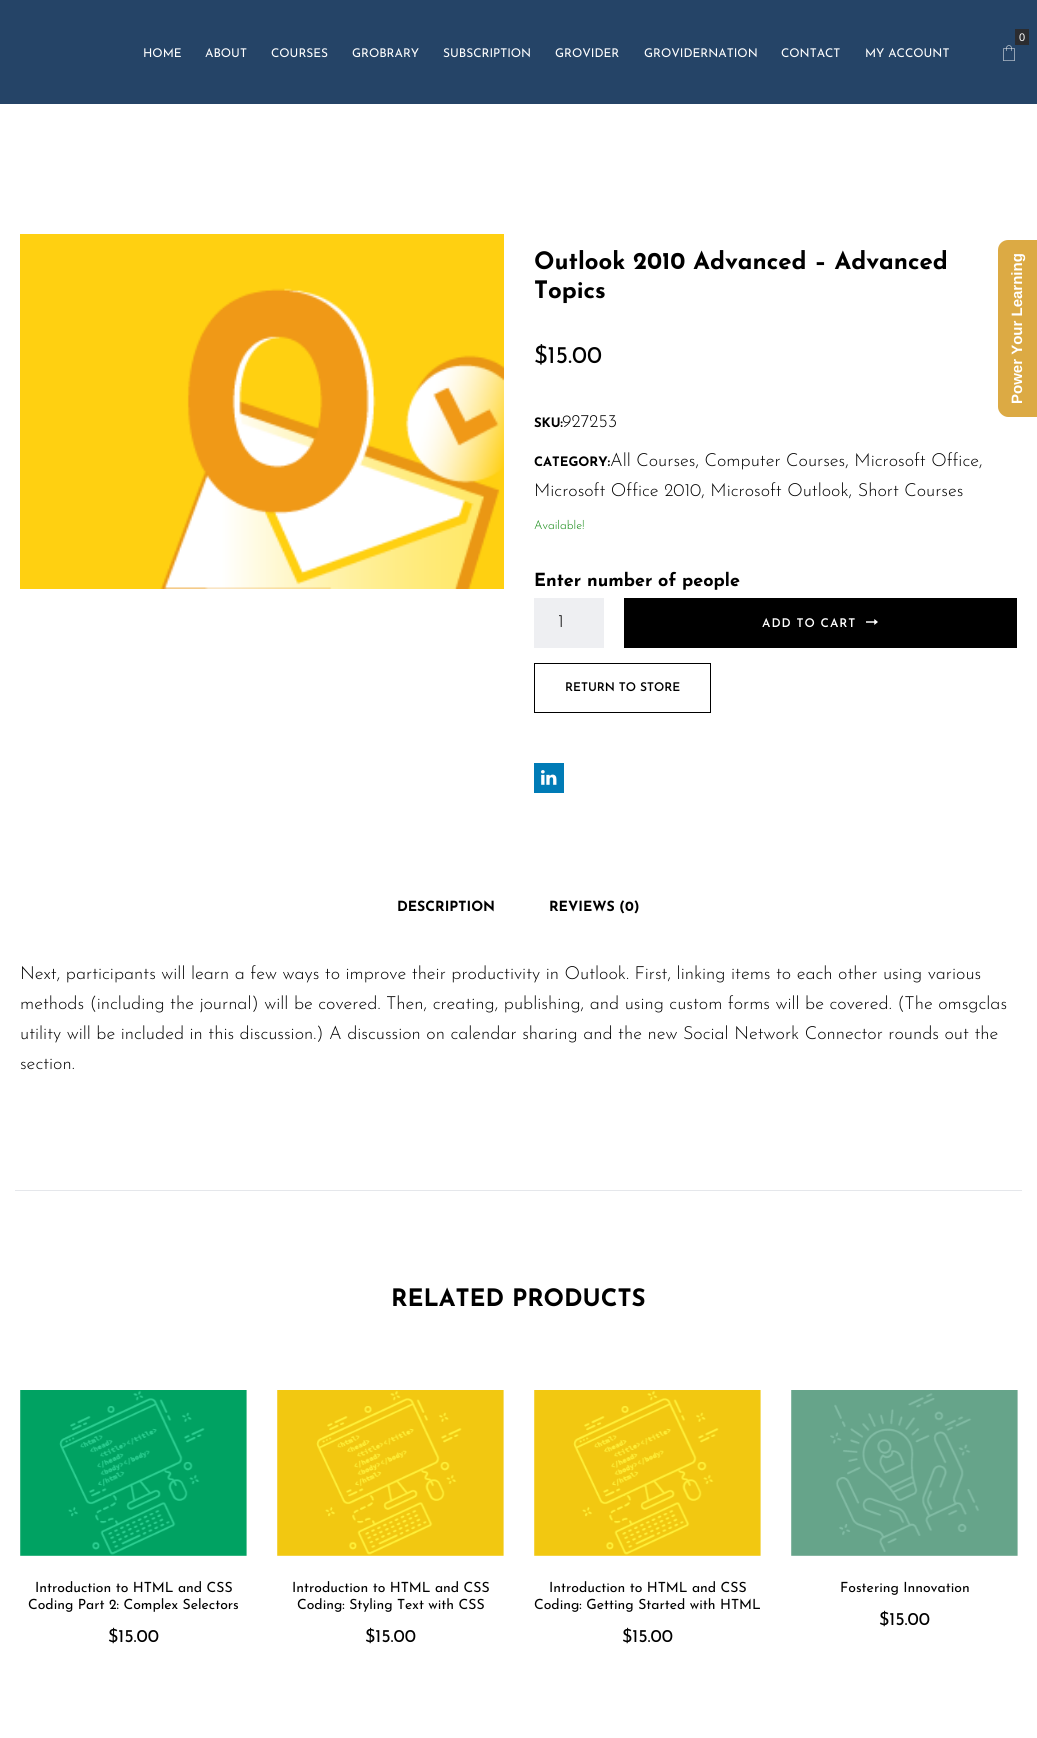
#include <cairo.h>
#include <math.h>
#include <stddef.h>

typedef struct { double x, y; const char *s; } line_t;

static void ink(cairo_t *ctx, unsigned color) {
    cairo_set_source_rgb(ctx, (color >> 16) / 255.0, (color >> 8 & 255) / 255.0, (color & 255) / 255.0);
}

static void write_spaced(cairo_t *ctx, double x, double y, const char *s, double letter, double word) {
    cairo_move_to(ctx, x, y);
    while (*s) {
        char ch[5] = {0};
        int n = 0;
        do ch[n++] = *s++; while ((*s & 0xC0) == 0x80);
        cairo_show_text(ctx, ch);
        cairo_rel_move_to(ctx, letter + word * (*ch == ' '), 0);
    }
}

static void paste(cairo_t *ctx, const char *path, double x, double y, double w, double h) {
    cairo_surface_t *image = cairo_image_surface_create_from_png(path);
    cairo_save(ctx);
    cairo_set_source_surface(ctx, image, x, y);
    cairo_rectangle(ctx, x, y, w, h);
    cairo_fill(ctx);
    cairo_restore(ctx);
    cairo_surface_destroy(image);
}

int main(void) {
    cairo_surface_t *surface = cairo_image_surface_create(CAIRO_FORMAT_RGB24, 1037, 1738);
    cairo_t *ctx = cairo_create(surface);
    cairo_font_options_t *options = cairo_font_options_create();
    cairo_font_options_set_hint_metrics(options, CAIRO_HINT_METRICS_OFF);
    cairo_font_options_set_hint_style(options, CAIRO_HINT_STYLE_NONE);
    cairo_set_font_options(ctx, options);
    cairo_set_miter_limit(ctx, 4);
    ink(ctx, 0xFFFFFF);
    cairo_paint(ctx);
    ink(ctx, 0x254467);
    cairo_rectangle(ctx, 0, 0, 1037, 104);
    cairo_fill(ctx);
    ink(ctx, 0x2B2C30);
    cairo_rectangle(ctx, 1015, 29, 14, 16);
    cairo_fill(ctx);
    cairo_select_font_face(ctx, "Liberation Sans", CAIRO_FONT_SLANT_NORMAL, CAIRO_FONT_WEIGHT_NORMAL);
    cairo_set_font_size(ctx, 11);
    ink(ctx, 0xFFFFFF);
    cairo_move_to(ctx, 1019, 41);
    cairo_show_text(ctx, "0");
    paste(ctx, "media/1.png", 1003, 45, 12, 16);
    cairo_select_font_face(ctx, "Josefin Sans", CAIRO_FONT_SLANT_NORMAL, CAIRO_FONT_WEIGHT_NORMAL);
    cairo_set_font_size(ctx, 12);
    {
        static const line_t items[] = {
            {143, 57, "HOME"},
            {205, 57, "ABOUT"},
            {271, 57, "COURSES"},
            {352, 57, "GROBRARY"},
            {443, 57, "SUBSCRIPTION"},
            {555, 57, "GROVIDER"},
            {644, 57, "GROVIDERNATION"},
            {781, 57, "CONTACT"},
            {865, 57, "MY ACCOUNT"},
        };
        for (size_t i = 0; i < sizeof items / sizeof *items; i++) {
            cairo_move_to(ctx, items[i].x, items[i].y);
            cairo_show_text(ctx, items[i].s);
        }
    }
    paste(ctx, "media/2.png", 20, 234, 484, 355);
    cairo_select_font_face(ctx, "Josefin Sans", CAIRO_FONT_SLANT_NORMAL, CAIRO_FONT_WEIGHT_BOLD);
    cairo_set_font_size(ctx, 24);
    ink(ctx, 0x000000);
    cairo_move_to(ctx, 534, 269);
    cairo_show_text(ctx, "Outlook 2010 Advanced – Advanced");
    cairo_move_to(ctx, 534, 298);
    cairo_show_text(ctx, "Topics");
    cairo_select_font_face(ctx, "Josefin Sans", CAIRO_FONT_SLANT_NORMAL, CAIRO_FONT_WEIGHT_NORMAL);
    cairo_move_to(ctx, 534, 363);
    cairo_show_text(ctx, "$15.00");
    cairo_select_font_face(ctx, "Josefin Sans", CAIRO_FONT_SLANT_NORMAL, CAIRO_FONT_WEIGHT_BOLD);
    cairo_set_font_size(ctx, 13);
    cairo_move_to(ctx, 534, 427);
    cairo_show_text(ctx, "SKU:");
    cairo_select_font_face(ctx, "Josefin Sans Light", CAIRO_FONT_SLANT_NORMAL, CAIRO_FONT_WEIGHT_NORMAL);
    cairo_set_font_size(ctx, 18);
    cairo_move_to(ctx, 562, 427);
    cairo_show_text(ctx, "927253");
    cairo_select_font_face(ctx, "Josefin Sans", CAIRO_FONT_SLANT_NORMAL, CAIRO_FONT_WEIGHT_BOLD);
    cairo_set_font_size(ctx, 13);
    cairo_move_to(ctx, 534, 466);
    cairo_show_text(ctx, "CATEGORY:");
    cairo_select_font_face(ctx, "Josefin Sans Light", CAIRO_FONT_SLANT_NORMAL, CAIRO_FONT_WEIGHT_NORMAL);
    cairo_set_font_size(ctx, 18);
    cairo_move_to(ctx, 610, 466);
    cairo_show_text(ctx, "All Courses, Computer Courses, Microsoft Office,");
    cairo_move_to(ctx, 534, 496);
    cairo_show_text(ctx, "Microsoft Office 2010, Microsoft Outlook, Short Courses");
    cairo_set_font_size(ctx, 12);
    ink(ctx, 0x008000);
    cairo_move_to(ctx, 534, 529);
    cairo_show_text(ctx, "Available!");
    cairo_select_font_face(ctx, "Josefin Sans", CAIRO_FONT_SLANT_NORMAL, CAIRO_FONT_WEIGHT_BOLD);
    cairo_set_font_size(ctx, 18);
    ink(ctx, 0x000000);
    cairo_move_to(ctx, 534, 586);
    cairo_show_text(ctx, "Enter number of people");
    ink(ctx, 0xEEEFF2);
    cairo_rectangle(ctx, 534, 598, 70, 50);
    cairo_fill(ctx);
    cairo_select_font_face(ctx, "Josefin Sans Light", CAIRO_FONT_SLANT_NORMAL, CAIRO_FONT_WEIGHT_NORMAL);
    ink(ctx, 0x000000);
    cairo_move_to(ctx, 558, 627);
    cairo_show_text(ctx, "1");
    cairo_rectangle(ctx, 624, 598, 393, 50);
    cairo_fill(ctx);
    cairo_select_font_face(ctx, "Josefin Sans SemiBold", CAIRO_FONT_SLANT_NORMAL, CAIRO_FONT_WEIGHT_NORMAL);
    cairo_set_font_size(ctx, 12);
    ink(ctx, 0xFFFFFF);
    write_spaced(ctx, 762, 627, "ADD TO CART", 1, 0);
    paste(ctx, "media/3.png", 866, 619, 12, 6);
    cairo_rectangle(ctx, 534.5, 663.5, 176, 49);
    ink(ctx, 0x000000);
    cairo_set_line_width(ctx, 1);
    cairo_stroke(ctx);
    cairo_move_to(ctx, 565, 691);
    cairo_show_text(ctx, "RETURN TO STORE");
    ink(ctx, 0x007BB6);
    cairo_rectangle(ctx, 534, 763, 30, 30);
    cairo_fill(ctx);
    paste(ctx, "media/4.png", 541, 770, 16, 15);
    cairo_select_font_face(ctx, "Josefin Sans", CAIRO_FONT_SLANT_NORMAL, CAIRO_FONT_WEIGHT_BOLD);
    cairo_set_font_size(ctx, 14);
    ink(ctx, 0x000000);
    cairo_move_to(ctx, 397, 911);
    cairo_show_text(ctx, "DESCRIPTION");
    cairo_move_to(ctx, 549, 911);
    cairo_show_text(ctx, "REVIEWS (0)");
    cairo_select_font_face(ctx, "Josefin Sans Light", CAIRO_FONT_SLANT_NORMAL, CAIRO_FONT_WEIGHT_NORMAL);
    cairo_set_font_size(ctx, 18);
    {
        static const line_t items[] = {
            {20, 979, "Next, participants will learn a few ways to improve their productivity in Outlook. First, linking items to each other using various"},
            {20, 1009, "methods (including the journal) will be covered. Then, creating, publishing, and using custom forms will be covered. (The omsgclas"},
            {20, 1039, "utility will be included in this discussion.) A discussion on calendar sharing and the new Social Network Connector rounds out the"},
            {20, 1069, "section."},
        };
        for (size_t i = 0; i < sizeof items / sizeof *items; i++) {
            cairo_move_to(ctx, items[i].x, items[i].y);
            cairo_show_text(ctx, items[i].s);
        }
    }
    ink(ctx, 0xE5E7EB);
    cairo_rectangle(ctx, 15, 1190, 1007, 1);
    cairo_fill(ctx);
    cairo_select_font_face(ctx, "Josefin Sans", CAIRO_FONT_SLANT_NORMAL, CAIRO_FONT_WEIGHT_BOLD);
    cairo_set_font_size(ctx, 24);
    ink(ctx, 0x000000);
    cairo_move_to(ctx, 391, 1306);
    cairo_show_text(ctx, "RELATED PRODUCTS");
    paste(ctx, "media/5.png", 20, 1390, 227, 166);
    cairo_select_font_face(ctx, "Josefin Sans", CAIRO_FONT_SLANT_NORMAL, CAIRO_FONT_WEIGHT_NORMAL);
    cairo_set_font_size(ctx, 14);
    cairo_move_to(ctx, 35, 1592);
    cairo_show_text(ctx, "Introduction to HTML and CSS");
    cairo_move_to(ctx, 28, 1609);
    cairo_show_text(ctx, "Coding Part 2: Complex Selectors");
    cairo_set_font_size(ctx, 18);
    cairo_move_to(ctx, 108, 1642);
    cairo_show_text(ctx, "$15.00");
    paste(ctx, "media/6.png", 277, 1390, 227, 166);
    cairo_set_font_size(ctx, 14);
    cairo_move_to(ctx, 292, 1592);
    cairo_show_text(ctx, "Introduction to HTML and CSS");
    cairo_move_to(ctx, 297, 1609);
    cairo_show_text(ctx, "Coding: Styling Text with CSS");
    cairo_set_font_size(ctx, 18);
    cairo_move_to(ctx, 365, 1642);
    cairo_show_text(ctx, "$15.00");
    paste(ctx, "media/6.png", 534, 1390, 227, 166);
    cairo_set_font_size(ctx, 14);
    cairo_move_to(ctx, 549, 1592);
    cairo_show_text(ctx, "Introduction to HTML and CSS");
    cairo_move_to(ctx, 534, 1609);
    cairo_show_text(ctx, "Coding: Getting Started with HTML");
    cairo_set_font_size(ctx, 18);
    cairo_move_to(ctx, 622, 1642);
    cairo_show_text(ctx, "$15.00");
    paste(ctx, "media/7.png", 791, 1390, 227, 166);
    cairo_set_font_size(ctx, 14);
    cairo_move_to(ctx, 840, 1592);
    cairo_show_text(ctx, "Fostering Innovation");
    cairo_set_font_size(ctx, 18);
    cairo_move_to(ctx, 879, 1625);
    cairo_show_text(ctx, "$15.00");
    ink(ctx, 0xDCAA44);
    cairo_new_path(ctx);
    cairo_move_to(ctx, 998, 407);
    cairo_line_to(ctx, 998, 250);
    cairo_curve_to(ctx, 998, 244, 1003, 240, 1008, 240);
    cairo_line_to(ctx, 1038, 240);
    cairo_line_to(ctx, 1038, 417);
    cairo_line_to(ctx, 1008, 417);
    cairo_curve_to(ctx, 1003, 417, 998, 412, 998, 407);
    cairo_close_path(ctx);
    cairo_fill(ctx);
    cairo_select_font_face(ctx, "Liberation Sans", CAIRO_FONT_SLANT_NORMAL, CAIRO_FONT_WEIGHT_BOLD);
    cairo_set_font_size(ctx, 15);
    ink(ctx, 0xFFFFFF);
    cairo_save(ctx);
    cairo_translate(ctx, 1022, 404);
    cairo_rotate(ctx, -90 * M_PI / 180);
    cairo_move_to(ctx, 0, 0);
    cairo_show_text(ctx, "Power Your Learning");
    cairo_restore(ctx);
    cairo_surface_write_to_png(surface, "image.png");
    cairo_font_options_destroy(options);
    cairo_destroy(ctx);
    cairo_surface_destroy(surface);
    return 0;
}
